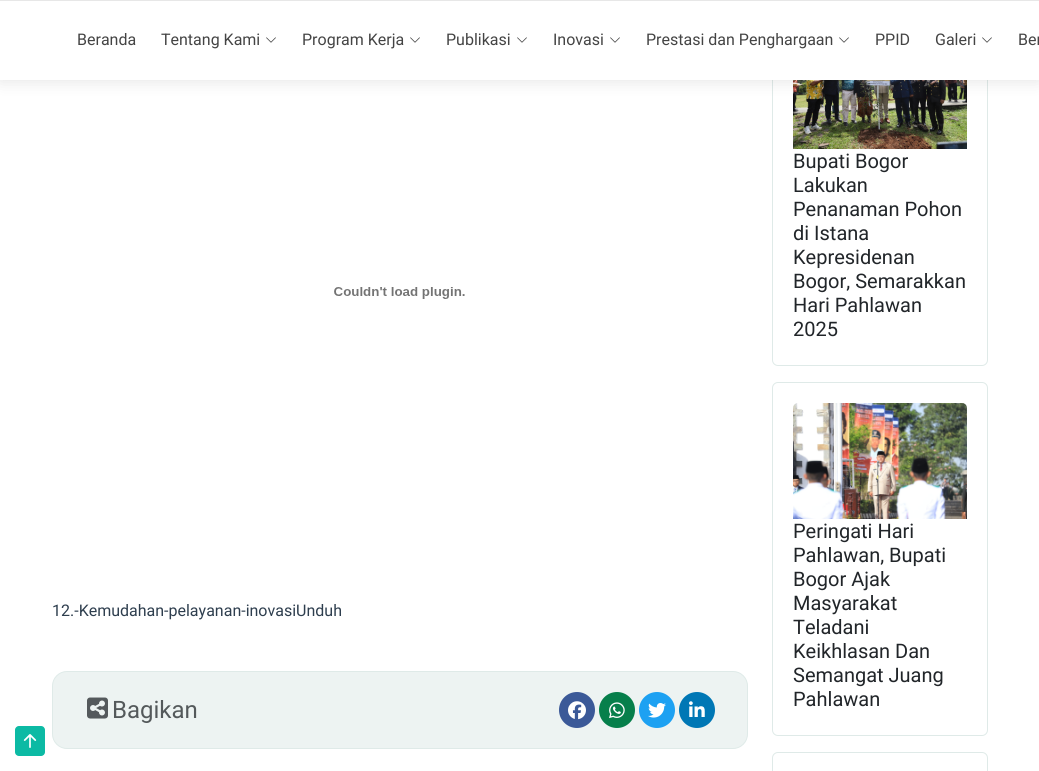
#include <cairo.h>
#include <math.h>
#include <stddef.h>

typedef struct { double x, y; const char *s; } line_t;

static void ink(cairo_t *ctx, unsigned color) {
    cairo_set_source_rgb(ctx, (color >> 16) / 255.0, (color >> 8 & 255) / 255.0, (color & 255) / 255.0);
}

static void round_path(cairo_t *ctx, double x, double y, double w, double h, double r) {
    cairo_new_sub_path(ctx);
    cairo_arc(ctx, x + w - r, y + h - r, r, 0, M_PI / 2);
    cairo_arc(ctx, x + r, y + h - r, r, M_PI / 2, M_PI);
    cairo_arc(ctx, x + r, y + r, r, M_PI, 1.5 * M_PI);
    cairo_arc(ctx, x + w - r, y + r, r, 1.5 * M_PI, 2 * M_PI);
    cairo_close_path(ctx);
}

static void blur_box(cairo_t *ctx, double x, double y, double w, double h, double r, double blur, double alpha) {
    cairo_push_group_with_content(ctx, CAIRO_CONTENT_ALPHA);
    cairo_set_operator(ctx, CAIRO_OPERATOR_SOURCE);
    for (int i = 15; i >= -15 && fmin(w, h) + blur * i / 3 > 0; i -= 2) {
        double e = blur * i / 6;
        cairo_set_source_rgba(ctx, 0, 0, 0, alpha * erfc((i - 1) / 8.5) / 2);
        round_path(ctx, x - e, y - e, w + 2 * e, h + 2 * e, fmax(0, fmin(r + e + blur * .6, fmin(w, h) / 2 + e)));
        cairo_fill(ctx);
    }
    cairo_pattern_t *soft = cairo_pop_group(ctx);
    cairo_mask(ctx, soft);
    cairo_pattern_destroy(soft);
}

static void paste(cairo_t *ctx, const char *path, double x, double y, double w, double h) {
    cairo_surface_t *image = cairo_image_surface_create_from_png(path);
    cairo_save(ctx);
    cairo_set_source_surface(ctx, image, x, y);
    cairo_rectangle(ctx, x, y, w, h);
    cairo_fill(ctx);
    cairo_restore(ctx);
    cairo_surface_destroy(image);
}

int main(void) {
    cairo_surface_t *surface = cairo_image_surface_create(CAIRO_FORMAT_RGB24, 1039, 771);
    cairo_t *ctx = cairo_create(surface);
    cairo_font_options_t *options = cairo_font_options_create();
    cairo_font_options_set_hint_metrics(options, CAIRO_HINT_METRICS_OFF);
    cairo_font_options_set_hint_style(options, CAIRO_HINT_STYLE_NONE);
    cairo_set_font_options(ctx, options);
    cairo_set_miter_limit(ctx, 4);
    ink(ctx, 0xFFFFFF);
    cairo_paint(ctx);
    round_path(ctx, 772.5, 12.5, 215, 353, 5.5);
    ink(ctx, 0xDFEAE8);
    cairo_set_line_width(ctx, 1);
    cairo_stroke(ctx);
    paste(ctx, "media/8.png", 793, 80, 174, 69);
    ink(ctx, 0x000000);
    blur_box(ctx, 0, 2, 1039, 80, 0, 7.5, 0.1);
    ink(ctx, 0xFFFFFF);
    cairo_rectangle(ctx, 0, 0, 1039, 80);
    cairo_fill(ctx);
    ink(ctx, 0x000000);
    blur_box(ctx, 0, -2, 1039, 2, 0, 0.5, 0.4);
    cairo_select_font_face(ctx, "Roboto", CAIRO_FONT_SLANT_NORMAL, CAIRO_FONT_WEIGHT_NORMAL);
    cairo_set_font_size(ctx, 16);
    ink(ctx, 0x444444);
    cairo_move_to(ctx, 77, 45);
    cairo_show_text(ctx, "Beranda");
    cairo_move_to(ctx, 161, 45);
    cairo_show_text(ctx, "Tentang Kami");
    paste(ctx, "media/1.png", 266, 37, 10, 6);
    cairo_move_to(ctx, 302, 45);
    cairo_show_text(ctx, "Program Kerja");
    paste(ctx, "media/1.png", 410, 37, 10, 6);
    cairo_move_to(ctx, 446, 45);
    cairo_show_text(ctx, "Publikasi");
    paste(ctx, "media/1.png", 517, 37, 10, 6);
    cairo_move_to(ctx, 553, 45);
    cairo_show_text(ctx, "Inovasi");
    paste(ctx, "media/1.png", 610, 37, 10, 6);
    cairo_move_to(ctx, 646, 45);
    cairo_show_text(ctx, "Prestasi dan Penghargaan");
    paste(ctx, "media/1.png", 839, 37, 10, 6);
    cairo_move_to(ctx, 875, 45);
    cairo_show_text(ctx, "PPID");
    cairo_move_to(ctx, 935, 45);
    cairo_show_text(ctx, "Galeri");
    paste(ctx, "media/1.png", 982, 37, 10, 6);
    cairo_move_to(ctx, 1018, 45);
    cairo_show_text(ctx, "Ber");
    paste(ctx, "media/2.png", 334, 287, 131, 12);
    ink(ctx, 0x2E3E4E);
    cairo_move_to(ctx, 52, 616);
    cairo_show_text(ctx, "12.-Kemudahan-pelayanan-inovasiUnduh");
    ink(ctx, 0xEDF3F2);
    round_path(ctx, 52.5, 671.5, 695, 77, 14.5);
    cairo_fill_preserve(ctx);
    ink(ctx, 0xDFEAE8);
    cairo_stroke(ctx);
    paste(ctx, "media/3.png", 87, 697, 21, 22);
    cairo_set_font_size(ctx, 24);
    ink(ctx, 0x54595B);
    cairo_move_to(ctx, 112, 718);
    cairo_show_text(ctx, "Bagikan");
    ink(ctx, 0x3B5998);
    cairo_new_path(ctx);
    cairo_arc(ctx, 577, 710, 18, 0, 2 * M_PI);
    cairo_fill(ctx);
    paste(ctx, "media/4.png", 568, 701, 18, 19);
    ink(ctx, 0x067F4B);
    cairo_arc(ctx, 617, 710, 18, 0, 2 * M_PI);
    cairo_fill(ctx);
    paste(ctx, "media/5.png", 609, 702, 16, 17);
    ink(ctx, 0x1DA1F2);
    cairo_arc(ctx, 657, 710, 18, 0, 2 * M_PI);
    cairo_fill(ctx);
    paste(ctx, "media/6.png", 648, 703, 18, 15);
    ink(ctx, 0x0077B5);
    cairo_arc(ctx, 697, 710, 18, 0, 2 * M_PI);
    cairo_fill(ctx);
    paste(ctx, "media/7.png", 689, 701, 16, 16);
    cairo_set_font_size(ctx, 20);
    ink(ctx, 0x212529);
    {
        static const line_t items[] = {
            {793, 168, "Bupati Bogor"},
            {793, 192, "Lakukan"},
            {793, 216, "Penanaman Pohon"},
            {793, 240, "di Istana"},
            {793, 264, "Kepresidenan"},
            {793, 288, "Bogor, Semarakkan"},
            {793, 312, "Hari Pahlawan"},
            {793, 336, "2025"},
        };
        for (size_t i = 0; i < sizeof items / sizeof *items; i++) {
            cairo_move_to(ctx, items[i].x, items[i].y);
            cairo_show_text(ctx, items[i].s);
        }
    }
    round_path(ctx, 772.5, 382.5, 215, 353, 5.5);
    ink(ctx, 0xDFEAE8);
    cairo_stroke(ctx);
    paste(ctx, "media/9.png", 793, 403, 174, 116);
    ink(ctx, 0x212529);
    {
        static const line_t items[] = {
            {793, 538, "Peringati Hari"},
            {793, 562, "Pahlawan, Bupati"},
            {793, 586, "Bogor Ajak"},
            {793, 610, "Masyarakat"},
            {793, 634, "Teladani"},
            {793, 658, "Keikhlasan Dan"},
            {793, 682, "Semangat Juang"},
            {793, 706, "Pahlawan"},
        };
        for (size_t i = 0; i < sizeof items / sizeof *items; i++) {
            cairo_move_to(ctx, items[i].x, items[i].y);
            cairo_show_text(ctx, items[i].s);
        }
    }
    round_path(ctx, 772.5, 752.5, 215, 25, 5.5);
    ink(ctx, 0xDFEAE8);
    cairo_stroke(ctx);
    ink(ctx, 0x0CBAA4);
    round_path(ctx, 15, 726, 30, 30, 4);
    cairo_fill(ctx);
    paste(ctx, "media/10.png", 23, 734, 14, 14);
    cairo_surface_write_to_png(surface, "image.png");
    cairo_font_options_destroy(options);
    cairo_destroy(ctx);
    cairo_surface_destroy(surface);
    return 0;
}
